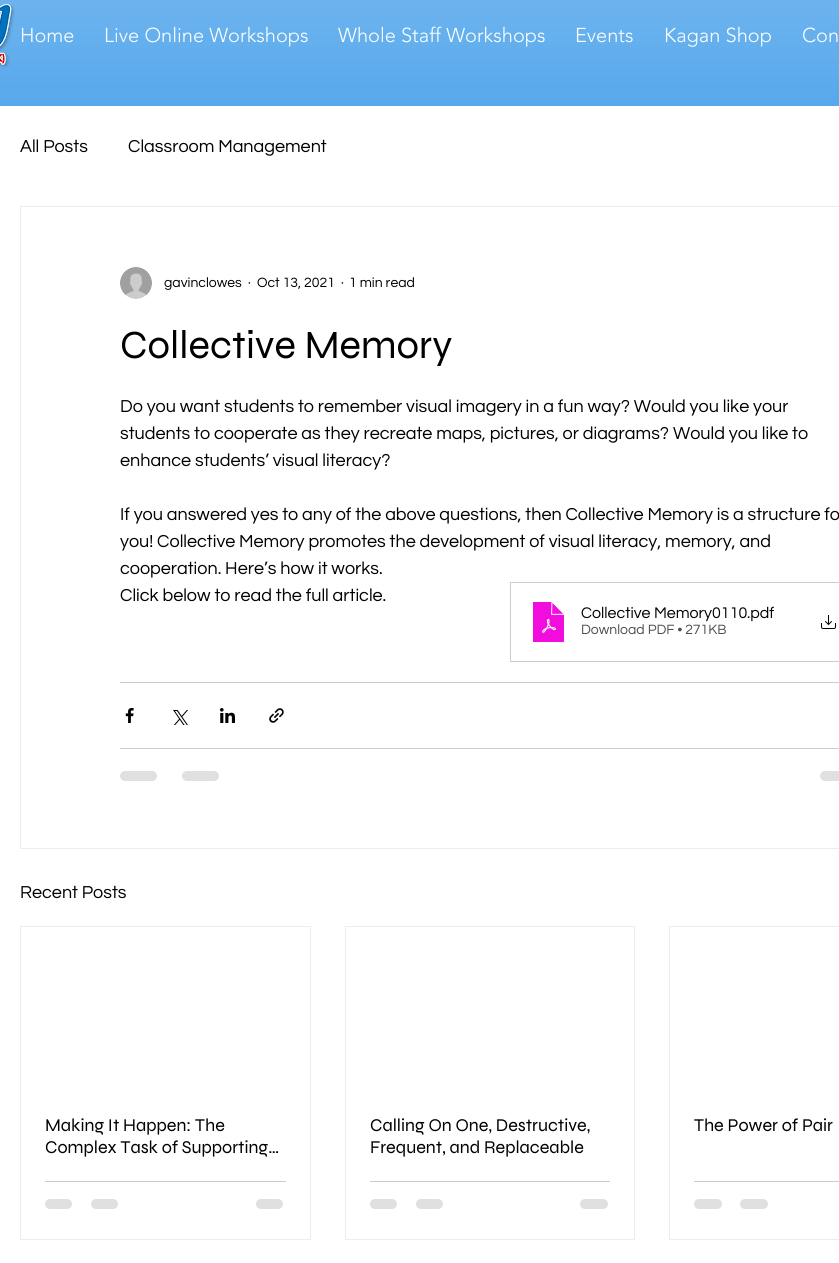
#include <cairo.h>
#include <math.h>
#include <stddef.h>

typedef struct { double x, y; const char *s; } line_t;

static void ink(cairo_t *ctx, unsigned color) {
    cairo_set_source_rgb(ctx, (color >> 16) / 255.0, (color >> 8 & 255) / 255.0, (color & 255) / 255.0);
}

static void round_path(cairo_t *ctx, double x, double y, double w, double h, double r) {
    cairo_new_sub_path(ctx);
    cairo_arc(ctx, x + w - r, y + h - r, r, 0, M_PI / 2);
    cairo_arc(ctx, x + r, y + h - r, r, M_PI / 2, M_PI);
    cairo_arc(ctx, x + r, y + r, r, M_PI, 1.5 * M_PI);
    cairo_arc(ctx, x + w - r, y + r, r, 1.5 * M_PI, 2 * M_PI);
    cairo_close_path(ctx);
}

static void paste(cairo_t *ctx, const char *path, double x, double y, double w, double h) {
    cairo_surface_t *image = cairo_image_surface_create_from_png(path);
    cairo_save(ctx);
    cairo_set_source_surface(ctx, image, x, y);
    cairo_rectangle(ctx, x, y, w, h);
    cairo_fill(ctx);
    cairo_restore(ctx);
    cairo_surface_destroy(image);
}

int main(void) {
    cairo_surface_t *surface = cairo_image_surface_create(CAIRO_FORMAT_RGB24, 839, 1263);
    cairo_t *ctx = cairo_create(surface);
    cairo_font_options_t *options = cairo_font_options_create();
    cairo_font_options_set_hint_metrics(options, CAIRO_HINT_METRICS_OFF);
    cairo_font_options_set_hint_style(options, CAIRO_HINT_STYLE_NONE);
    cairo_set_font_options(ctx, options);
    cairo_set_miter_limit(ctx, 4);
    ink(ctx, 0xFFFFFF);
    cairo_paint(ctx);
    ink(ctx, 0x3D9BE9);
    cairo_rectangle(ctx, 0, 0, 839, 106);
    cairo_fill(ctx);
    paste(ctx, "media/1.png", 0, 0, 839, 106);
    paste(ctx, "media/2.png", 0, 3, 15, 65);
    cairo_select_font_face(ctx, "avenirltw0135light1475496 Light", CAIRO_FONT_SLANT_NORMAL, CAIRO_FONT_WEIGHT_NORMAL);
    cairo_set_font_size(ctx, 20);
    ink(ctx, 0xFFFFFF);
    {
        static const line_t items[] = {
            {20, 42, "Home"},
            {104, 42, "Live Online Workshops"},
            {338, 42, "Whole Staff Workshops"},
            {575, 42, "Events"},
            {664, 42, "Kagan Shop"},
            {802, 42, "Con"},
        };
        for (size_t i = 0; i < sizeof items / sizeof *items; i++) {
            cairo_move_to(ctx, items[i].x, items[i].y);
            cairo_show_text(ctx, items[i].s);
        }
    }
    cairo_select_font_face(ctx, "Questrial", CAIRO_FONT_SLANT_NORMAL, CAIRO_FONT_WEIGHT_NORMAL);
    cairo_set_font_size(ctx, 18);
    ink(ctx, 0x000000);
    cairo_move_to(ctx, 20, 152);
    cairo_show_text(ctx, "All Posts");
    cairo_move_to(ctx, 128, 152);
    cairo_show_text(ctx, "Classroom Management");
    cairo_rectangle(ctx, 20.5, 206.5, 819, 642);
    ink(ctx, 0xEEECEC);
    cairo_set_line_width(ctx, 1);
    cairo_stroke(ctx);
    paste(ctx, "media/3.png", 120, 267, 32, 32);
    cairo_set_font_size(ctx, 14);
    ink(ctx, 0x000000);
    {
        static const line_t items[] = {
            {164, 287, "gavinclowes"},
            {248, 287, "·"},
            {257, 287, "Oct 13, 2021"},
            {341, 287, "·"},
            {349, 287, "1 min read"},
        };
        for (size_t i = 0; i < sizeof items / sizeof *items; i++) {
            cairo_move_to(ctx, items[i].x, items[i].y);
            cairo_show_text(ctx, items[i].s);
        }
    }
    cairo_select_font_face(ctx, "Syne", CAIRO_FONT_SLANT_NORMAL, CAIRO_FONT_WEIGHT_NORMAL);
    cairo_set_font_size(ctx, 40);
    cairo_move_to(ctx, 120, 358);
    cairo_show_text(ctx, "Collective Memory");
    cairo_select_font_face(ctx, "Questrial", CAIRO_FONT_SLANT_NORMAL, CAIRO_FONT_WEIGHT_NORMAL);
    cairo_set_font_size(ctx, 18);
    {
        static const line_t items[] = {
            {120, 412, "Do you want students to remember visual imagery in a fun way? Would you like your"},
            {120, 439, "students to cooperate as they recreate maps, pictures, or diagrams? Would you like to"},
            {120, 466, "enhance students’ visual literacy?"},
            {120, 520, "If you answered yes to any of the above questions, then Collective Memory is a structure fo"},
            {120, 547, "you! Collective Memory promotes the development of visual literacy, memory, and"},
            {120, 574, "cooperation. Here’s how it works."},
            {120, 601, "Click below to read the full article."},
        };
        for (size_t i = 0; i < sizeof items / sizeof *items; i++) {
            cairo_move_to(ctx, items[i].x, items[i].y);
            cairo_show_text(ctx, items[i].s);
        }
    }
    cairo_rectangle(ctx, 510.5, 582.5, 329, 79);
    ink(ctx, 0xCCCCCC);
    cairo_stroke(ctx);
    paste(ctx, "media/4.png", 532, 601, 33, 42);
    cairo_set_font_size(ctx, 16);
    ink(ctx, 0x000000);
    cairo_move_to(ctx, 581, 618);
    cairo_show_text(ctx, "Collective Memory0110");
    cairo_move_to(ctx, 747, 618);
    cairo_show_text(ctx, ".pdf");
    cairo_set_font_size(ctx, 14);
    ink(ctx, 0x4D4D4D);
    cairo_move_to(ctx, 581, 634);
    cairo_show_text(ctx, "Download PDF • 271KB");
    paste(ctx, "media/5.png", 821, 615, 15, 14);
    ink(ctx, 0xCCCCCC);
    cairo_rectangle(ctx, 120, 682, 719, 1);
    cairo_fill(ctx);
    paste(ctx, "media/6.png", 125, 708, 9, 15);
    paste(ctx, "media/7.png", 173, 710, 15, 15);
    paste(ctx, "media/8.png", 220, 708, 15, 15);
    paste(ctx, "media/9.png", 269, 708, 15, 15);
    cairo_rectangle(ctx, 120, 748, 719, 1);
    cairo_fill(ctx);
    ink(ctx, 0xE0E0E0);
    round_path(ctx, 120, 771, 37, 10, 5);
    cairo_fill(ctx);
    round_path(ctx, 182, 771, 37, 10, 5);
    cairo_fill(ctx);
    round_path(ctx, 820, 771, 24, 10, 5);
    cairo_fill(ctx);
    cairo_set_font_size(ctx, 18);
    ink(ctx, 0x000000);
    cairo_move_to(ctx, 20, 898);
    cairo_show_text(ctx, "Recent Posts");
    cairo_rectangle(ctx, 20.5, 926.5, 290, 313);
    ink(ctx, 0xEEECEC);
    cairo_stroke(ctx);
    cairo_select_font_face(ctx, "Syne", CAIRO_FONT_SLANT_NORMAL, CAIRO_FONT_WEIGHT_NORMAL);
    ink(ctx, 0x000000);
    cairo_move_to(ctx, 45, 1131);
    cairo_show_text(ctx, "Making It Happen: The");
    cairo_move_to(ctx, 45, 1153);
    cairo_show_text(ctx, "Complex Task of Supporting…");
    ink(ctx, 0xCCCCCC);
    cairo_rectangle(ctx, 45, 1181, 241, 1);
    cairo_fill(ctx);
    ink(ctx, 0xE0E0E0);
    round_path(ctx, 45, 1199, 27, 10, 5);
    cairo_fill(ctx);
    round_path(ctx, 91, 1199, 27, 10, 5);
    cairo_fill(ctx);
    round_path(ctx, 256, 1199, 27, 10, 5);
    cairo_fill(ctx);
    cairo_rectangle(ctx, 345.5, 926.5, 289, 313);
    ink(ctx, 0xEEECEC);
    cairo_stroke(ctx);
    ink(ctx, 0x000000);
    cairo_move_to(ctx, 370, 1131);
    cairo_show_text(ctx, "Calling On One, Destructive,");
    cairo_move_to(ctx, 370, 1153);
    cairo_show_text(ctx, "Frequent, and Replaceable");
    ink(ctx, 0xCCCCCC);
    cairo_rectangle(ctx, 370, 1181, 240, 1);
    cairo_fill(ctx);
    ink(ctx, 0xE0E0E0);
    round_path(ctx, 370, 1199, 27, 10, 5);
    cairo_fill(ctx);
    round_path(ctx, 416, 1199, 27, 10, 5);
    cairo_fill(ctx);
    round_path(ctx, 580, 1199, 28, 10, 5);
    cairo_fill(ctx);
    cairo_rectangle(ctx, 669.5, 926.5, 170, 313);
    ink(ctx, 0xEEECEC);
    cairo_stroke(ctx);
    ink(ctx, 0x000000);
    cairo_move_to(ctx, 694, 1131);
    cairo_show_text(ctx, "The Power of Pair");
    ink(ctx, 0xCCCCCC);
    cairo_rectangle(ctx, 694, 1181, 145, 1);
    cairo_fill(ctx);
    ink(ctx, 0xE0E0E0);
    round_path(ctx, 694, 1199, 28, 10, 5);
    cairo_fill(ctx);
    round_path(ctx, 740, 1199, 28, 10, 5);
    cairo_fill(ctx);
    cairo_surface_write_to_png(surface, "image.png");
    cairo_font_options_destroy(options);
    cairo_destroy(ctx);
    cairo_surface_destroy(surface);
    return 0;
}
